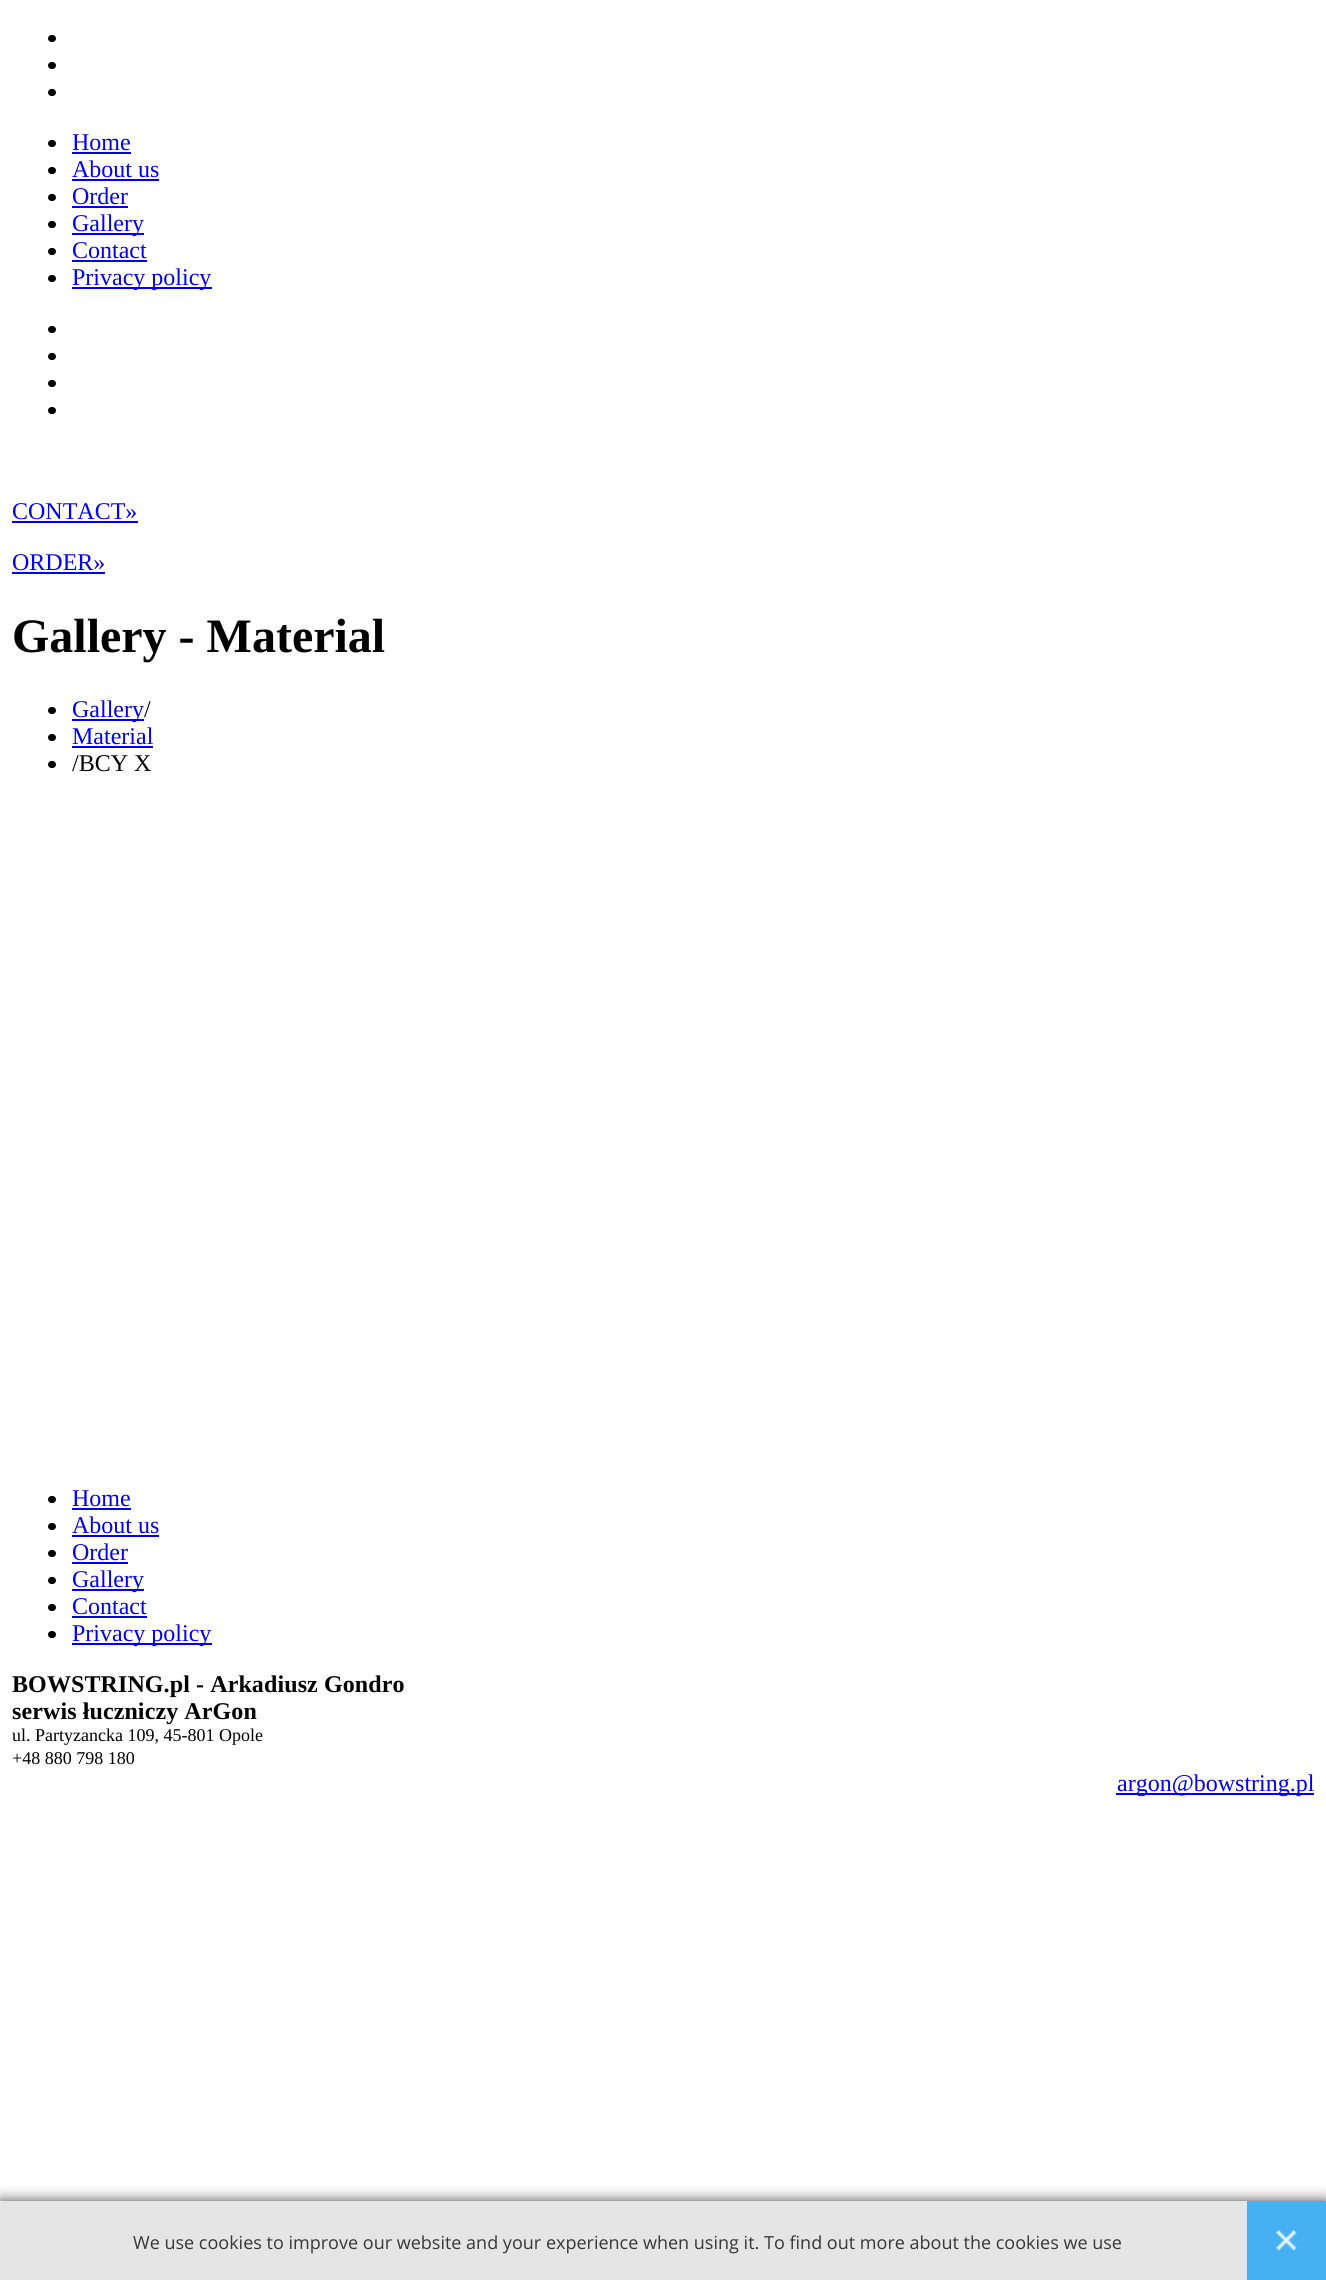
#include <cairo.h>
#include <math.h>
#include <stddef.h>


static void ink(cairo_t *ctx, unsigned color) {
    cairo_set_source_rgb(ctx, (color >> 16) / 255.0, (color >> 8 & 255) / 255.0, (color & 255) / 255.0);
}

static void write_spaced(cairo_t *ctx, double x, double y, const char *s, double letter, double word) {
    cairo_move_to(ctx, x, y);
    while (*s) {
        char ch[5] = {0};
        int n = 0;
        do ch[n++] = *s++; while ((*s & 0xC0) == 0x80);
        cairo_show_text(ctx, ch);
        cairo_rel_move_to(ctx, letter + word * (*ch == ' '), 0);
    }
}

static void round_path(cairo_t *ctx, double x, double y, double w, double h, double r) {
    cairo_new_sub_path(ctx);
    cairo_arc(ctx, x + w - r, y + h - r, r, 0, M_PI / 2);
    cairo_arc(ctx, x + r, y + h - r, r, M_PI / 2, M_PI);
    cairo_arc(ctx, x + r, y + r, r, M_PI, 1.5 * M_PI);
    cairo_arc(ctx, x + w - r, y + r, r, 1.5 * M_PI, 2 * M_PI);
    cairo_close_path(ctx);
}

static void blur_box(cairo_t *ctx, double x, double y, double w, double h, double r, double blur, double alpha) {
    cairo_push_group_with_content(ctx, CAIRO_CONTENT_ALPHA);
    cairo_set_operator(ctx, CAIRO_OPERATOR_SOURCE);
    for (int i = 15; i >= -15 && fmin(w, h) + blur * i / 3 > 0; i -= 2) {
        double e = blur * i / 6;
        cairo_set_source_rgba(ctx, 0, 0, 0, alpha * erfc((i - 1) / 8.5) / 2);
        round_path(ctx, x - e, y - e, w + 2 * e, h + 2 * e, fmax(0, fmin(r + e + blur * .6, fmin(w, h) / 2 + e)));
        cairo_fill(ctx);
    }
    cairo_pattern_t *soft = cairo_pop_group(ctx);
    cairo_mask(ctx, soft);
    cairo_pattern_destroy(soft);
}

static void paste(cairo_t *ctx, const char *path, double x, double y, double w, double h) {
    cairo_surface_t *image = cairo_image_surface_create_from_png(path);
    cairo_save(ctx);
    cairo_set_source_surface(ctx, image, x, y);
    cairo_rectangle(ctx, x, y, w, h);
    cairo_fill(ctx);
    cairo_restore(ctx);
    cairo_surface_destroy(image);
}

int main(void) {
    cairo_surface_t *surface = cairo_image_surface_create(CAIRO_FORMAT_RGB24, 1326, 2280);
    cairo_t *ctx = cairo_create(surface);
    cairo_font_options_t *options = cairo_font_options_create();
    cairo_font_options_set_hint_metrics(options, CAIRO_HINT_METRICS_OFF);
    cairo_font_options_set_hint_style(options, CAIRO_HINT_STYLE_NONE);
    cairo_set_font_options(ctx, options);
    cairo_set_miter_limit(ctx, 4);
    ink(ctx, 0xFFFFFF);
    cairo_paint(ctx);
    ink(ctx, 0x000000);
    round_path(ctx, 48, 35, 8, 7, 3.5);
    cairo_fill(ctx);
    round_path(ctx, 48, 62, 8, 7, 3.5);
    cairo_fill(ctx);
    round_path(ctx, 48, 89, 8, 7, 3.5);
    cairo_fill(ctx);
    round_path(ctx, 48, 140, 8, 7, 3.5);
    cairo_fill(ctx);
    cairo_select_font_face(ctx, "Liberation Serif", CAIRO_FONT_SLANT_NORMAL, CAIRO_FONT_WEIGHT_NORMAL);
    cairo_set_font_size(ctx, 24);
    ink(ctx, 0x0000EE);
    cairo_move_to(ctx, 72, 150);
    cairo_show_text(ctx, "Home");
    cairo_rectangle(ctx, 72, 152, 59, 2);
    cairo_fill(ctx);
    ink(ctx, 0x000000);
    round_path(ctx, 48, 167, 8, 7, 3.5);
    cairo_fill(ctx);
    ink(ctx, 0x0000EE);
    cairo_move_to(ctx, 72, 177);
    cairo_show_text(ctx, "About us");
    cairo_rectangle(ctx, 72, 179, 87, 2);
    cairo_fill(ctx);
    ink(ctx, 0x000000);
    round_path(ctx, 48, 194, 8, 7, 3.5);
    cairo_fill(ctx);
    ink(ctx, 0x0000EE);
    cairo_move_to(ctx, 72, 204);
    cairo_show_text(ctx, "Order");
    cairo_rectangle(ctx, 72, 206, 56, 2);
    cairo_fill(ctx);
    ink(ctx, 0x000000);
    round_path(ctx, 48, 221, 8, 7, 3.5);
    cairo_fill(ctx);
    ink(ctx, 0x0000EE);
    cairo_rectangle(ctx, 72, 233, 72, 2);
    cairo_fill(ctx);
    cairo_move_to(ctx, 72, 231);
    cairo_show_text(ctx, "Gallery");
    ink(ctx, 0x000000);
    round_path(ctx, 48, 248, 8, 7, 3.5);
    cairo_fill(ctx);
    ink(ctx, 0x0000EE);
    cairo_move_to(ctx, 72, 258);
    cairo_show_text(ctx, "Contact");
    cairo_rectangle(ctx, 72, 260, 75, 2);
    cairo_fill(ctx);
    ink(ctx, 0x000000);
    round_path(ctx, 48, 275, 8, 7, 3.5);
    cairo_fill(ctx);
    ink(ctx, 0x0000EE);
    cairo_rectangle(ctx, 72, 287, 140, 2);
    cairo_fill(ctx);
    cairo_move_to(ctx, 72, 285);
    cairo_show_text(ctx, "Privacy policy");
    ink(ctx, 0x000000);
    round_path(ctx, 48, 326, 8, 7, 3.5);
    cairo_fill(ctx);
    round_path(ctx, 48, 353, 8, 7, 3.5);
    cairo_fill(ctx);
    round_path(ctx, 48, 380, 8, 7, 3.5);
    cairo_fill(ctx);
    round_path(ctx, 48, 407, 8, 7, 3.5);
    cairo_fill(ctx);
    ink(ctx, 0x0000EE);
    cairo_move_to(ctx, 12, 519);
    cairo_show_text(ctx, "CONTACT»");
    cairo_rectangle(ctx, 12, 521, 126, 2);
    cairo_fill(ctx);
    cairo_move_to(ctx, 12, 570);
    cairo_show_text(ctx, "ORDER»");
    cairo_rectangle(ctx, 12, 572, 93, 2);
    cairo_fill(ctx);
    cairo_select_font_face(ctx, "Liberation Serif", CAIRO_FONT_SLANT_NORMAL, CAIRO_FONT_WEIGHT_BOLD);
    cairo_set_font_size(ctx, 48);
    ink(ctx, 0x000000);
    cairo_move_to(ctx, 12, 652);
    cairo_show_text(ctx, "Gallery - Material");
    round_path(ctx, 48, 707, 8, 7, 3.5);
    cairo_fill(ctx);
    ink(ctx, 0x0000EE);
    cairo_rectangle(ctx, 72, 719, 72, 2);
    cairo_fill(ctx);
    cairo_select_font_face(ctx, "Liberation Serif", CAIRO_FONT_SLANT_NORMAL, CAIRO_FONT_WEIGHT_NORMAL);
    cairo_set_font_size(ctx, 24);
    cairo_move_to(ctx, 72, 717);
    cairo_show_text(ctx, "Gallery");
    ink(ctx, 0x000000);
    cairo_move_to(ctx, 144, 717);
    cairo_show_text(ctx, "/");
    round_path(ctx, 48, 734, 8, 7, 3.5);
    cairo_fill(ctx);
    ink(ctx, 0x0000EE);
    cairo_move_to(ctx, 72, 744);
    cairo_show_text(ctx, "Material");
    cairo_rectangle(ctx, 72, 746, 81, 2);
    cairo_fill(ctx);
    ink(ctx, 0x000000);
    round_path(ctx, 48, 761, 8, 7, 3.5);
    cairo_fill(ctx);
    cairo_move_to(ctx, 72, 771);
    cairo_show_text(ctx, "/BCY X");
    round_path(ctx, 48, 1496, 8, 7, 3.5);
    cairo_fill(ctx);
    ink(ctx, 0x0000EE);
    cairo_move_to(ctx, 72, 1506);
    cairo_show_text(ctx, "Home");
    cairo_rectangle(ctx, 72, 1508, 59, 2);
    cairo_fill(ctx);
    ink(ctx, 0x000000);
    round_path(ctx, 48, 1523, 8, 7, 3.5);
    cairo_fill(ctx);
    ink(ctx, 0x0000EE);
    cairo_move_to(ctx, 72, 1533);
    cairo_show_text(ctx, "About us");
    cairo_rectangle(ctx, 72, 1535, 87, 2);
    cairo_fill(ctx);
    ink(ctx, 0x000000);
    round_path(ctx, 48, 1550, 8, 7, 3.5);
    cairo_fill(ctx);
    ink(ctx, 0x0000EE);
    cairo_move_to(ctx, 72, 1560);
    cairo_show_text(ctx, "Order");
    cairo_rectangle(ctx, 72, 1562, 56, 2);
    cairo_fill(ctx);
    ink(ctx, 0x000000);
    round_path(ctx, 48, 1577, 8, 7, 3.5);
    cairo_fill(ctx);
    ink(ctx, 0x0000EE);
    cairo_rectangle(ctx, 72, 1589, 72, 2);
    cairo_fill(ctx);
    cairo_move_to(ctx, 72, 1587);
    cairo_show_text(ctx, "Gallery");
    ink(ctx, 0x000000);
    round_path(ctx, 48, 1604, 8, 7, 3.5);
    cairo_fill(ctx);
    ink(ctx, 0x0000EE);
    cairo_move_to(ctx, 72, 1614);
    cairo_show_text(ctx, "Contact");
    cairo_rectangle(ctx, 72, 1616, 75, 2);
    cairo_fill(ctx);
    ink(ctx, 0x000000);
    round_path(ctx, 48, 1631, 8, 7, 3.5);
    cairo_fill(ctx);
    ink(ctx, 0x0000EE);
    cairo_rectangle(ctx, 72, 1643, 140, 2);
    cairo_fill(ctx);
    cairo_move_to(ctx, 72, 1641);
    cairo_show_text(ctx, "Privacy policy");
    cairo_select_font_face(ctx, "Liberation Serif", CAIRO_FONT_SLANT_NORMAL, CAIRO_FONT_WEIGHT_BOLD);
    ink(ctx, 0x000000);
    write_spaced(ctx, 12, 1692, "BOWSTRING.pl - Arkadiusz Gondro", 0.1, 0);
    write_spaced(ctx, 12, 1719, "serwis łuczniczy ArGon", 0.1, 0);
    cairo_select_font_face(ctx, "Liberation Serif", CAIRO_FONT_SLANT_NORMAL, CAIRO_FONT_WEIGHT_NORMAL);
    cairo_set_font_size(ctx, 18);
    cairo_move_to(ctx, 12, 1741);
    cairo_show_text(ctx, "ul. Partyzancka 109, 45-801 Opole");
    cairo_move_to(ctx, 12, 1764);
    cairo_show_text(ctx, "+48 880 798 180");
    ink(ctx, 0x0000EE);
    cairo_rectangle(ctx, 1116, 1793, 198, 2);
    cairo_fill(ctx);
    cairo_set_font_size(ctx, 24);
    cairo_move_to(ctx, 1117, 1791);
    cairo_show_text(ctx, "argon@bowstring.pl");
    ink(ctx, 0x1A1A1A);
    blur_box(ctx, 0, 2201, 1326, 79, 0, 7.5, 0.8);
    ink(ctx, 0xE5E5E5);
    cairo_rectangle(ctx, 0, 2201, 1247, 79);
    cairo_fill(ctx);
    cairo_select_font_face(ctx, "Open Sans", CAIRO_FONT_SLANT_NORMAL, CAIRO_FONT_WEIGHT_NORMAL);
    cairo_set_font_size(ctx, 18);
    ink(ctx, 0x373737);
    cairo_move_to(ctx, 133, 2249);
    cairo_show_text(ctx, "We use cookies to improve our website and your experience when using it. To find out more about the cookies we use");
    ink(ctx, 0x46B1F2);
    cairo_rectangle(ctx, 1247, 2201, 79, 79);
    cairo_fill(ctx);
    paste(ctx, "media/1.png", 1276, 2230, 21, 21);
    cairo_surface_write_to_png(surface, "image.png");
    cairo_font_options_destroy(options);
    cairo_destroy(ctx);
    cairo_surface_destroy(surface);
    return 0;
}
